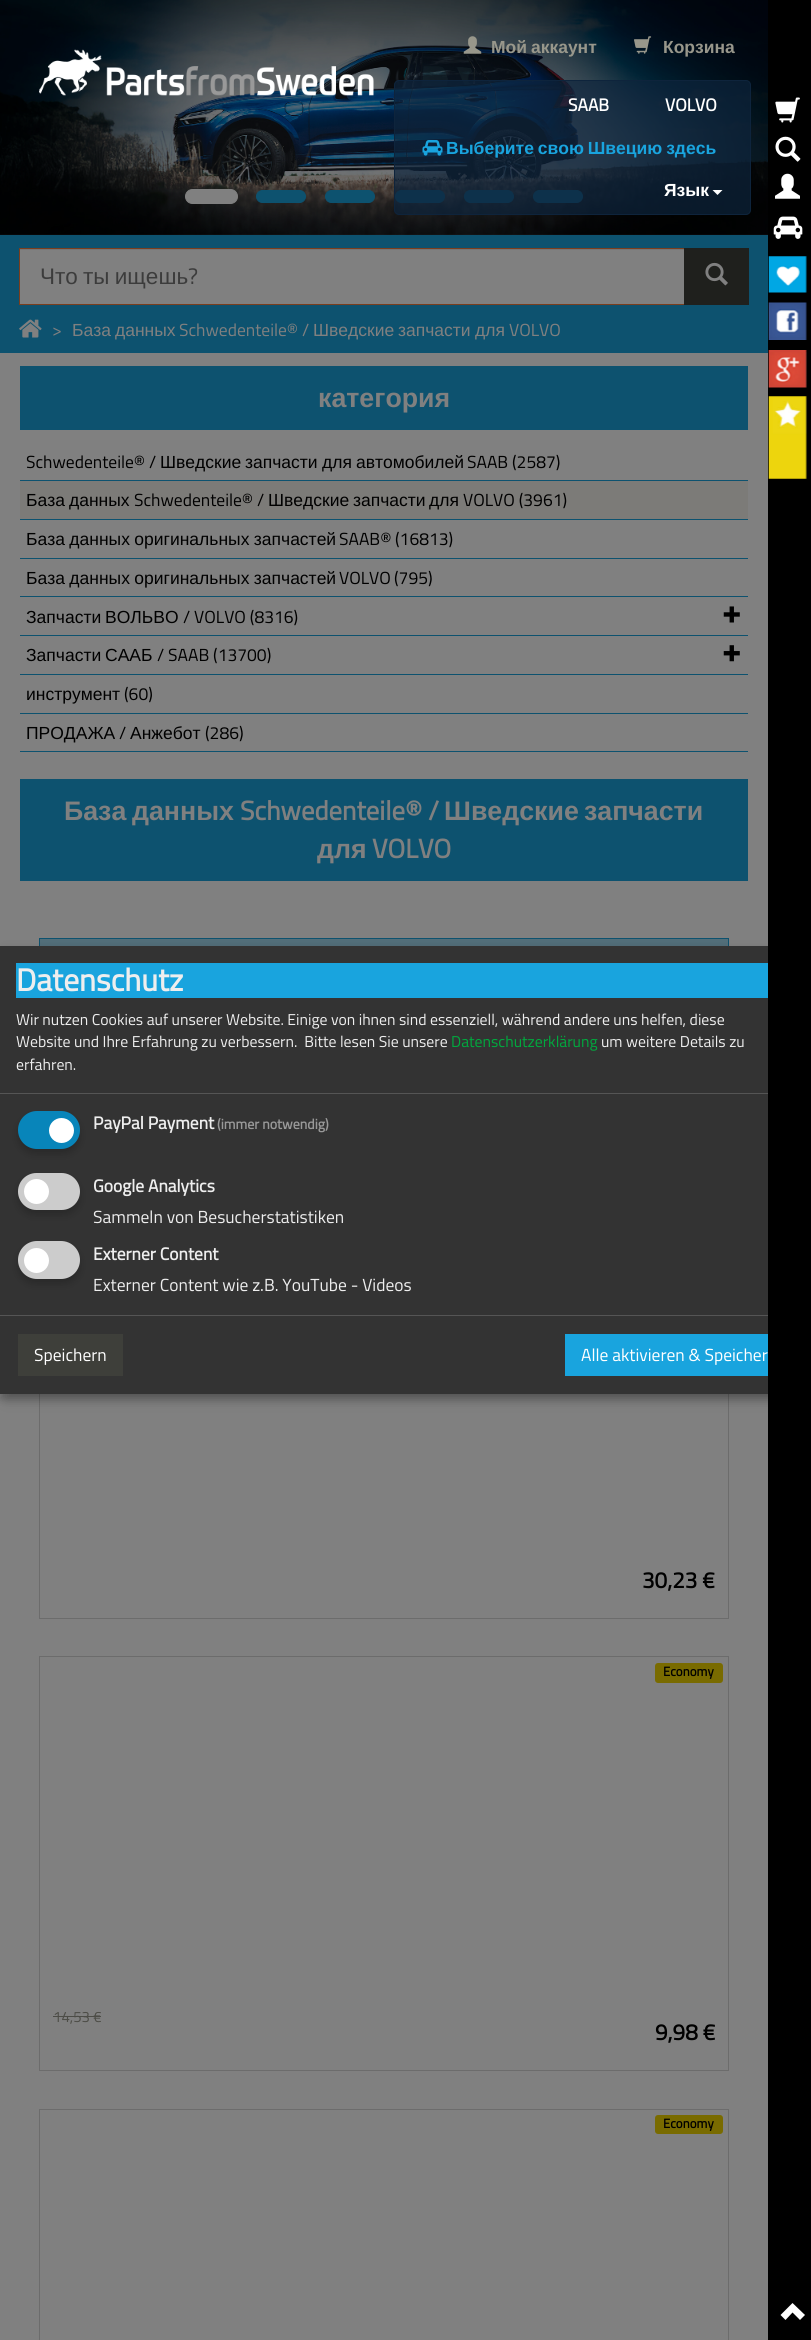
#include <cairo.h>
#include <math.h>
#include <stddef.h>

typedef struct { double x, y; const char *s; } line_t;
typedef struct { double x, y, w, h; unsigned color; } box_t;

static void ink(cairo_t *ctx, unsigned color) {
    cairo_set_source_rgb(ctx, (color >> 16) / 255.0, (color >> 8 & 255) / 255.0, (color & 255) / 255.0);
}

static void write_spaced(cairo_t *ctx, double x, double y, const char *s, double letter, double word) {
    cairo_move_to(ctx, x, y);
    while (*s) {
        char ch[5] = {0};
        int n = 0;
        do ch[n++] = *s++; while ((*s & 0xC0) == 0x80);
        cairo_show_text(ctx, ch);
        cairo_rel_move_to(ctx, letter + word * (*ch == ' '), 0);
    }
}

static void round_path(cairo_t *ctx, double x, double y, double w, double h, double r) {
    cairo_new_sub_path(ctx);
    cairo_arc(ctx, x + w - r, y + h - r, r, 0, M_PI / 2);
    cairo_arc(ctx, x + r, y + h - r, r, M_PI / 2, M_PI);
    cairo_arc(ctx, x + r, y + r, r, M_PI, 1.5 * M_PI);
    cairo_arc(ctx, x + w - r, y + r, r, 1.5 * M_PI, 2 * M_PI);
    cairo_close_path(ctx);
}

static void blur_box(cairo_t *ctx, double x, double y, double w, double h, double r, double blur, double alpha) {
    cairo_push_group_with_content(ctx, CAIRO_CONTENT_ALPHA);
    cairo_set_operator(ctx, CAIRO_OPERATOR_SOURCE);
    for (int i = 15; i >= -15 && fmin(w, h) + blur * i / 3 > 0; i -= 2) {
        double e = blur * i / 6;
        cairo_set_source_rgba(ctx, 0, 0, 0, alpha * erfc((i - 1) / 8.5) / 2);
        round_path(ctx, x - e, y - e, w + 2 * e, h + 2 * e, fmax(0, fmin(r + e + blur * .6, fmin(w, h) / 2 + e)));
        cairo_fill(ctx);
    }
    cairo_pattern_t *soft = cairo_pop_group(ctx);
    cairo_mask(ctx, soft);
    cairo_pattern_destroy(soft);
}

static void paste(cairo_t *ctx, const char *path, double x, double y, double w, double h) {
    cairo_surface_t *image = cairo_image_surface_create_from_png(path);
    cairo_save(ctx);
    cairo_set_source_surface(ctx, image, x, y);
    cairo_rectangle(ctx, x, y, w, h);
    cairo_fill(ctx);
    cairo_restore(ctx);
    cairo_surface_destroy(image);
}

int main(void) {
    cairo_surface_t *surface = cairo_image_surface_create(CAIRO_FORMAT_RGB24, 811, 2340);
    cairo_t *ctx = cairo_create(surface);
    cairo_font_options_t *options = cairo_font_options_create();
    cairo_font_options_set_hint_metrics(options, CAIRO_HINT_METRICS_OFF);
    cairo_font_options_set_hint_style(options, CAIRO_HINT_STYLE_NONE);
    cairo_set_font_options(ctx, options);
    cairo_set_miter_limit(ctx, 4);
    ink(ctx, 0x808080);
    cairo_paint(ctx);
    paste(ctx, "media/1.png", 0, 0, 768, 235);
    ink(ctx, 0x808080);
    round_path(ctx, 185.5, 189.5, 52, 14, 7);
    cairo_fill_preserve(ctx);
    cairo_set_line_width(ctx, 1);
    cairo_stroke(ctx);
    ink(ctx, 0x0D526F);
    round_path(ctx, 256.5, 190.5, 49, 12, 6);
    cairo_fill_preserve(ctx);
    cairo_stroke(ctx);
    round_path(ctx, 325.5, 190.5, 49, 12, 6);
    cairo_fill_preserve(ctx);
    cairo_stroke(ctx);
    round_path(ctx, 395.5, 190.5, 49, 12, 6);
    cairo_fill_preserve(ctx);
    cairo_stroke(ctx);
    round_path(ctx, 464.5, 190.5, 49, 12, 6);
    cairo_fill_preserve(ctx);
    cairo_stroke(ctx);
    round_path(ctx, 533.5, 190.5, 49, 12, 6);
    cairo_fill_preserve(ctx);
    cairo_stroke(ctx);
    paste(ctx, "media/2.png", 39, 49, 335, 47);
    paste(ctx, "media/3.png", 463, 36, 19, 18);
    cairo_select_font_face(ctx, "Liberation Sans", CAIRO_FONT_SLANT_NORMAL, CAIRO_FONT_WEIGHT_BOLD);
    cairo_set_font_size(ctx, 17.5);
    ink(ctx, 0x98978B);
    write_spaced(ctx, 491, 53, "Мой аккаунт", 0, -1);
    paste(ctx, "media/4.png", 634, 36, 18, 18);
    cairo_move_to(ctx, 663, 53);
    cairo_show_text(ctx, "Корзина");
    cairo_set_source_rgba(ctx, 0.055, 0.141, 0.235, 0.7);
    round_path(ctx, 394.5, 80.5, 356, 134, 4.5);
    cairo_fill_preserve(ctx);
    ink(ctx, 0x0E243C);
    cairo_stroke(ctx);
    cairo_select_font_face(ctx, "Titillium Web", CAIRO_FONT_SLANT_NORMAL, CAIRO_FONT_WEIGHT_BOLD);
    ink(ctx, 0xFFFFFF);
    cairo_move_to(ctx, 568, 111);
    cairo_show_text(ctx, "SAAB");
    cairo_move_to(ctx, 665, 111);
    cairo_show_text(ctx, "VOLVO");
    paste(ctx, "media/5.png", 422, 140, 21, 16);
    cairo_select_font_face(ctx, "Liberation Sans", CAIRO_FONT_SLANT_NORMAL, CAIRO_FONT_WEIGHT_BOLD);
    ink(ctx, 0x19A4DE);
    write_spaced(ctx, 446, 154, "Выберите свою Швецию здесь", 0, -1);
    ink(ctx, 0xFFFFFF);
    cairo_move_to(ctx, 664, 196);
    cairo_show_text(ctx, "Язык");
    cairo_new_path(ctx);
    cairo_move_to(ctx, 712.5, 190);
    cairo_line_to(ctx, 722.5, 190);
    cairo_line_to(ctx, 717.5, 195);
    cairo_close_path(ctx);
    cairo_fill(ctx);
    ink(ctx, 0x526E79);
    cairo_rectangle(ctx, 40, 939, 688, 7);
    cairo_fill(ctx);
    cairo_rectangle(ctx, 39.5, 938.5, 689, 100);
    ink(ctx, 0x0D526F);
    cairo_stroke(ctx);
    cairo_rectangle(ctx, 39.5, 1204.5, 689, 414);
    ink(ctx, 0x6C6C6C);
    cairo_stroke(ctx);
    ink(ctx, 0x000000);
    blur_box(ctx, 6, 953, 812, 447, 0, 6, 0.19);
    blur_box(ctx, 0, 951, 811, 448, 0, 4, 0.2);
    ink(ctx, 0x000000);
    cairo_rectangle(ctx, 768, 0, 43, 2340);
    cairo_fill(ctx);
    paste(ctx, "media/6.png", 775, 97, 25, 26);
    paste(ctx, "media/7.png", 775, 136, 26, 26);
    paste(ctx, "media/8.png", 775, 173, 25, 26);
    paste(ctx, "media/9.png", 773, 216, 30, 23);
    paste(ctx, "media/10.png", 768, 256, 39, 37);
    paste(ctx, "media/11.png", 768, 302, 39, 38);
    paste(ctx, "media/12.png", 768, 350, 39, 38);
    paste(ctx, "media/13.png", 768, 396, 39, 83);
    ink(ctx, 0xFFFFFF);
    cairo_new_path(ctx);
    cairo_move_to(ctx, 780.5, 2315);
    cairo_line_to(ctx, 785.5, 2320);
    cairo_line_to(ctx, 792.5, 2312.5);
    cairo_line_to(ctx, 800, 2320);
    cairo_line_to(ctx, 805, 2315);
    cairo_line_to(ctx, 792.5, 2303);
    cairo_close_path(ctx);
    cairo_fill(ctx);
    {
        static const box_t items[] = {
            {0, 235, 768, 118, 0x0D526F},
            {20, 250, 664, 54, 0x808080},
            {20, 249, 664, 1, 0x767676},
        };
        for (size_t i = 0; i < sizeof items / sizeof *items; i++) {
            ink(ctx, items[i].color);
            cairo_rectangle(ctx, items[i].x, items[i].y, items[i].w, items[i].h);
            cairo_fill(ctx);
        }
    }
    cairo_rectangle(ctx, 19.5, 248.5, 665, 56);
    ink(ctx, 0x7A3E1E);
    cairo_stroke(ctx);
    cairo_select_font_face(ctx, "Liberation Sans", CAIRO_FONT_SLANT_NORMAL, CAIRO_FONT_WEIGHT_NORMAL);
    cairo_set_font_size(ctx, 22.5);
    ink(ctx, 0x3C3C3C);
    write_spaced(ctx, 40, 284, "Что ты ищешь", 0, -1);
    cairo_select_font_face(ctx, "Titillium Web", CAIRO_FONT_SLANT_NORMAL, CAIRO_FONT_WEIGHT_NORMAL);
    cairo_move_to(ctx, 188, 284);
    cairo_show_text(ctx, "?");
    ink(ctx, 0x1F201D);
    cairo_rectangle(ctx, 684, 248, 65, 57);
    cairo_fill(ctx);
    paste(ctx, "media/14.png", 705, 262, 23, 24);
    paste(ctx, "media/15.png", 19, 319, 23, 19);
    cairo_set_font_size(ctx, 17.5);
    ink(ctx, 0x808080);
    cairo_move_to(ctx, 52, 336);
    cairo_show_text(ctx, ">");
    cairo_select_font_face(ctx, "Liberation Sans", CAIRO_FONT_SLANT_NORMAL, CAIRO_FONT_WEIGHT_NORMAL);
    cairo_move_to(ctx, 72, 336);
    cairo_show_text(ctx, "База");
    cairo_move_to(ctx, 115, 336);
    cairo_show_text(ctx, "данных");
    cairo_select_font_face(ctx, "Titillium Web", CAIRO_FONT_SLANT_NORMAL, CAIRO_FONT_WEIGHT_NORMAL);
    cairo_move_to(ctx, 179, 336);
    cairo_show_text(ctx, "Schwedenteile® /");
    cairo_select_font_face(ctx, "Liberation Sans", CAIRO_FONT_SLANT_NORMAL, CAIRO_FONT_WEIGHT_NORMAL);
    {
        static const line_t items[] = {
            {313, 336, "Шведские"},
            {398, 336, "запчасти"},
            {475, 336, "для"},
        };
        for (size_t i = 0; i < sizeof items / sizeof *items; i++) {
            cairo_move_to(ctx, items[i].x, items[i].y);
            cairo_show_text(ctx, items[i].s);
        }
    }
    cairo_select_font_face(ctx, "Titillium Web", CAIRO_FONT_SLANT_NORMAL, CAIRO_FONT_WEIGHT_NORMAL);
    cairo_move_to(ctx, 509, 336);
    cairo_show_text(ctx, "VOLVO");
    ink(ctx, 0x0D526F);
    cairo_rectangle(ctx, 20, 366, 728, 64);
    cairo_fill(ctx);
    cairo_select_font_face(ctx, "Liberation Sans", CAIRO_FONT_SLANT_NORMAL, CAIRO_FONT_WEIGHT_BOLD);
    cairo_set_font_size(ctx, 26.75);
    ink(ctx, 0x808080);
    cairo_move_to(ctx, 318, 407);
    cairo_show_text(ctx, "категория");
    ink(ctx, 0x0D526F);
    cairo_rectangle(ctx, 20, 480, 728, 1);
    cairo_fill(ctx);
    cairo_select_font_face(ctx, "Titillium Web", CAIRO_FONT_SLANT_NORMAL, CAIRO_FONT_WEIGHT_NORMAL);
    cairo_set_font_size(ctx, 17.5);
    ink(ctx, 0x000000);
    cairo_move_to(ctx, 26, 468);
    cairo_show_text(ctx, "Schwedenteile® /");
    cairo_select_font_face(ctx, "Liberation Sans", CAIRO_FONT_SLANT_NORMAL, CAIRO_FONT_WEIGHT_NORMAL);
    {
        static const line_t items[] = {
            {160, 468, "Шведские"},
            {245, 468, "запчасти"},
            {322, 468, "для"},
            {356, 468, "автомобилей"},
        };
        for (size_t i = 0; i < sizeof items / sizeof *items; i++) {
            cairo_move_to(ctx, items[i].x, items[i].y);
            cairo_show_text(ctx, items[i].s);
        }
    }
    cairo_select_font_face(ctx, "Titillium Web", CAIRO_FONT_SLANT_NORMAL, CAIRO_FONT_WEIGHT_NORMAL);
    cairo_move_to(ctx, 467, 468);
    cairo_show_text(ctx, "SAAB (2587)");
    ink(ctx, 0x7C7B78);
    cairo_rectangle(ctx, 20, 481, 728, 38);
    cairo_fill(ctx);
    cairo_select_font_face(ctx, "Liberation Sans", CAIRO_FONT_SLANT_NORMAL, CAIRO_FONT_WEIGHT_NORMAL);
    ink(ctx, 0x000000);
    cairo_move_to(ctx, 26, 506);
    cairo_show_text(ctx, "База");
    cairo_move_to(ctx, 69, 506);
    cairo_show_text(ctx, "данных");
    cairo_select_font_face(ctx, "Titillium Web", CAIRO_FONT_SLANT_NORMAL, CAIRO_FONT_WEIGHT_NORMAL);
    cairo_move_to(ctx, 134, 506);
    cairo_show_text(ctx, "Schwedenteile® /");
    cairo_select_font_face(ctx, "Liberation Sans", CAIRO_FONT_SLANT_NORMAL, CAIRO_FONT_WEIGHT_NORMAL);
    {
        static const line_t items[] = {
            {268, 506, "Шведские"},
            {353, 506, "запчасти"},
            {429, 506, "для"},
        };
        for (size_t i = 0; i < sizeof items / sizeof *items; i++) {
            cairo_move_to(ctx, items[i].x, items[i].y);
            cairo_show_text(ctx, items[i].s);
        }
    }
    cairo_select_font_face(ctx, "Titillium Web", CAIRO_FONT_SLANT_NORMAL, CAIRO_FONT_WEIGHT_NORMAL);
    cairo_move_to(ctx, 463, 506);
    cairo_show_text(ctx, "VOLVO (3961)");
    ink(ctx, 0x0D526F);
    cairo_rectangle(ctx, 20, 519, 728, 1);
    cairo_fill(ctx);
    cairo_rectangle(ctx, 20, 558, 728, 1);
    cairo_fill(ctx);
    cairo_select_font_face(ctx, "Liberation Sans", CAIRO_FONT_SLANT_NORMAL, CAIRO_FONT_WEIGHT_NORMAL);
    ink(ctx, 0x000000);
    write_spaced(ctx, 26, 545, "База данных оригинальных запчастей", 0, -0.5);
    cairo_select_font_face(ctx, "Titillium Web", CAIRO_FONT_SLANT_NORMAL, CAIRO_FONT_WEIGHT_NORMAL);
    cairo_move_to(ctx, 339, 545);
    cairo_show_text(ctx, "SAAB®");
    cairo_move_to(ctx, 395, 545);
    cairo_show_text(ctx, "(16813)");
    ink(ctx, 0x0D526F);
    cairo_rectangle(ctx, 20, 596, 728, 1);
    cairo_fill(ctx);
    cairo_select_font_face(ctx, "Liberation Sans", CAIRO_FONT_SLANT_NORMAL, CAIRO_FONT_WEIGHT_NORMAL);
    ink(ctx, 0x000000);
    write_spaced(ctx, 26, 584, "База данных оригинальных запчастей", 0, -0.5);
    cairo_select_font_face(ctx, "Titillium Web", CAIRO_FONT_SLANT_NORMAL, CAIRO_FONT_WEIGHT_NORMAL);
    cairo_move_to(ctx, 339, 584);
    cairo_show_text(ctx, "VOLVO");
    cairo_move_to(ctx, 394, 584);
    cairo_show_text(ctx, "(795)");
    ink(ctx, 0x0D526F);
    cairo_rectangle(ctx, 20, 635, 728, 1);
    cairo_fill(ctx);
    cairo_select_font_face(ctx, "Liberation Sans", CAIRO_FONT_SLANT_NORMAL, CAIRO_FONT_WEIGHT_NORMAL);
    ink(ctx, 0x000000);
    cairo_move_to(ctx, 26, 623);
    cairo_show_text(ctx, "Запчасти");
    cairo_move_to(ctx, 105, 623);
    cairo_show_text(ctx, "ВОЛЬВО");
    cairo_select_font_face(ctx, "Titillium Web", CAIRO_FONT_SLANT_NORMAL, CAIRO_FONT_WEIGHT_NORMAL);
    cairo_move_to(ctx, 183, 623);
    cairo_show_text(ctx, "/ VOLVO (8316)");
    paste(ctx, "media/16.png", 723, 606, 17, 17);
    ink(ctx, 0x0D526F);
    cairo_rectangle(ctx, 20, 674, 728, 1);
    cairo_fill(ctx);
    cairo_select_font_face(ctx, "Liberation Sans", CAIRO_FONT_SLANT_NORMAL, CAIRO_FONT_WEIGHT_NORMAL);
    ink(ctx, 0x000000);
    cairo_move_to(ctx, 26, 661);
    cairo_show_text(ctx, "Запчасти");
    cairo_move_to(ctx, 105, 661);
    cairo_show_text(ctx, "СААБ");
    cairo_select_font_face(ctx, "Titillium Web", CAIRO_FONT_SLANT_NORMAL, CAIRO_FONT_WEIGHT_NORMAL);
    cairo_move_to(ctx, 157, 661);
    cairo_show_text(ctx, "/ SAAB (13700)");
    paste(ctx, "media/17.png", 723, 645, 17, 17);
    ink(ctx, 0x0D526F);
    cairo_rectangle(ctx, 20, 713, 728, 1);
    cairo_fill(ctx);
    cairo_select_font_face(ctx, "Liberation Sans", CAIRO_FONT_SLANT_NORMAL, CAIRO_FONT_WEIGHT_NORMAL);
    ink(ctx, 0x000000);
    cairo_move_to(ctx, 26, 700);
    cairo_show_text(ctx, "инструмент");
    cairo_select_font_face(ctx, "Titillium Web", CAIRO_FONT_SLANT_NORMAL, CAIRO_FONT_WEIGHT_NORMAL);
    cairo_move_to(ctx, 124, 700);
    cairo_show_text(ctx, "(60)");
    ink(ctx, 0x0D526F);
    cairo_rectangle(ctx, 20, 751, 728, 1);
    cairo_fill(ctx);
    cairo_select_font_face(ctx, "Liberation Sans", CAIRO_FONT_SLANT_NORMAL, CAIRO_FONT_WEIGHT_NORMAL);
    ink(ctx, 0x000000);
    cairo_move_to(ctx, 26, 739);
    cairo_show_text(ctx, "ПРОДАЖА");
    cairo_select_font_face(ctx, "Titillium Web", CAIRO_FONT_SLANT_NORMAL, CAIRO_FONT_WEIGHT_NORMAL);
    cairo_move_to(ctx, 119, 739);
    cairo_show_text(ctx, "/");
    cairo_select_font_face(ctx, "Liberation Sans", CAIRO_FONT_SLANT_NORMAL, CAIRO_FONT_WEIGHT_NORMAL);
    cairo_move_to(ctx, 130, 739);
    cairo_show_text(ctx, "Анжебот");
    cairo_select_font_face(ctx, "Titillium Web", CAIRO_FONT_SLANT_NORMAL, CAIRO_FONT_WEIGHT_NORMAL);
    cairo_move_to(ctx, 205, 739);
    cairo_show_text(ctx, "(286)");
    ink(ctx, 0x0D526F);
    cairo_rectangle(ctx, 20, 779, 728, 102);
    cairo_fill(ctx);
    cairo_select_font_face(ctx, "Liberation Sans", CAIRO_FONT_SLANT_NORMAL, CAIRO_FONT_WEIGHT_BOLD);
    cairo_set_font_size(ctx, 26.75);
    ink(ctx, 0x808080);
    cairo_move_to(ctx, 64, 820);
    cairo_show_text(ctx, "База");
    cairo_move_to(ctx, 132, 820);
    cairo_show_text(ctx, "данных");
    cairo_select_font_face(ctx, "Titillium Web", CAIRO_FONT_SLANT_NORMAL, CAIRO_FONT_WEIGHT_BOLD);
    cairo_move_to(ctx, 240, 820);
    cairo_show_text(ctx, "Schwedenteile® /");
    cairo_select_font_face(ctx, "Liberation Sans", CAIRO_FONT_SLANT_NORMAL, CAIRO_FONT_WEIGHT_BOLD);
    {
        static const line_t items[] = {
            {444, 820, "Шведские"},
            {584, 820, "запчасти"},
            {317, 858, "для"},
        };
        for (size_t i = 0; i < sizeof items / sizeof *items; i++) {
            cairo_move_to(ctx, items[i].x, items[i].y);
            cairo_show_text(ctx, items[i].s);
        }
    }
    cairo_select_font_face(ctx, "Titillium Web", CAIRO_FONT_SLANT_NORMAL, CAIRO_FONT_WEIGHT_BOLD);
    cairo_move_to(ctx, 372, 858);
    cairo_show_text(ctx, "VOLVO");
    cairo_set_font_size(ctx, 22.5);
    ink(ctx, 0x000000);
    cairo_move_to(ctx, 642, 1588);
    cairo_show_text(ctx, "30,23 €");
    cairo_rectangle(ctx, 39.5, 1656.5, 689, 414);
    ink(ctx, 0x6C6C6C);
    cairo_stroke(ctx);
    ink(ctx, 0x796B00);
    round_path(ctx, 655, 1663, 68, 20, 3);
    cairo_fill(ctx);
    cairo_set_font_size(ctx, 13);
    ink(ctx, 0x000000);
    cairo_move_to(ctx, 663, 1676);
    cairo_show_text(ctx, "Economy");
    cairo_select_font_face(ctx, "Titillium Web", CAIRO_FONT_SLANT_NORMAL, CAIRO_FONT_WEIGHT_NORMAL);
    cairo_set_font_size(ctx, 15);
    ink(ctx, 0x4C4C46);
    cairo_move_to(ctx, 53, 2022);
    cairo_show_text(ctx, "14,53 €");
    cairo_rectangle(ctx, 53, 2016, 48, 1);
    cairo_fill(ctx);
    cairo_select_font_face(ctx, "Titillium Web", CAIRO_FONT_SLANT_NORMAL, CAIRO_FONT_WEIGHT_BOLD);
    cairo_set_font_size(ctx, 22.5);
    ink(ctx, 0x000000);
    cairo_move_to(ctx, 655, 2040);
    cairo_show_text(ctx, "9,98 €");
    cairo_rectangle(ctx, 39.5, 2109.5, 689, 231);
    ink(ctx, 0x6C6C6C);
    cairo_stroke(ctx);
    ink(ctx, 0x796B00);
    round_path(ctx, 655, 2115, 68, 19, 3);
    cairo_fill(ctx);
    cairo_set_font_size(ctx, 13);
    ink(ctx, 0x000000);
    cairo_move_to(ctx, 663, 2128);
    cairo_show_text(ctx, "Economy");
    {
        static const box_t items[] = {
            {0, 946, 768, 448, 0x333333},
            {0, 1093, 768, 1, 0x555555},
            {16, 963, 752, 35, 0x19A4DE},
        };
        for (size_t i = 0; i < sizeof items / sizeof *items; i++) {
            ink(ctx, items[i].color);
            cairo_rectangle(ctx, items[i].x, items[i].y, items[i].w, items[i].h);
            cairo_fill(ctx);
        }
    }
    cairo_set_font_size(ctx, 31.5);
    ink(ctx, 0xEEEEEE);
    cairo_move_to(ctx, 16, 991);
    cairo_show_text(ctx, "Datenschutz");
    cairo_select_font_face(ctx, "Titillium Web", CAIRO_FONT_SLANT_NORMAL, CAIRO_FONT_WEIGHT_NORMAL);
    cairo_set_font_size(ctx, 15.75);
    cairo_move_to(ctx, 16, 1025);
    cairo_show_text(ctx, "Wir nutzen Cookies auf unserer Website. Einige von ihnen sind essenziell, während andere uns helfen, diese");
    cairo_move_to(ctx, 16, 1047);
    cairo_show_text(ctx, "Website und Ihre Erfahrung zu verbessern.  Bitte lesen Sie unsere");
    ink(ctx, 0x00AA3E);
    cairo_move_to(ctx, 451, 1047);
    cairo_show_text(ctx, "Datenschutzerklärung");
    ink(ctx, 0xEEEEEE);
    cairo_move_to(ctx, 601, 1047);
    cairo_show_text(ctx, "um weitere Details zu");
    cairo_move_to(ctx, 16, 1070);
    cairo_show_text(ctx, "erfahren.");
    ink(ctx, 0x000000);
    blur_box(ctx, 18, 1116, 62, 38, 19, 4, 0.2);
    ink(ctx, 0x0885BA);
    round_path(ctx, 18, 1111, 62, 38, 19);
    cairo_fill(ctx);
    ink(ctx, 0xFFFFFF);
    cairo_arc(ctx, 61.5, 1130.5, 12.5, 0, 2 * M_PI);
    cairo_fill(ctx);
    cairo_select_font_face(ctx, "Titillium Web", CAIRO_FONT_SLANT_NORMAL, CAIRO_FONT_WEIGHT_BOLD);
    cairo_set_font_size(ctx, 17.5);
    ink(ctx, 0xEEEEEE);
    cairo_move_to(ctx, 93, 1129);
    cairo_show_text(ctx, "PayPal Payment");
    cairo_set_font_size(ctx, 14);
    ink(ctx, 0x999999);
    cairo_move_to(ctx, 217, 1129);
    cairo_show_text(ctx, "(immer notwendig)");
    ink(ctx, 0x000000);
    blur_box(ctx, 18, 1178, 62, 37, 18.5, 4, 0.2);
    ink(ctx, 0xCCCCCC);
    round_path(ctx, 18, 1173, 62, 37, 18.5);
    cairo_fill(ctx);
    ink(ctx, 0xFFFFFF);
    cairo_arc(ctx, 36.5, 1191.5, 12.5, 0, 2 * M_PI);
    cairo_fill(ctx);
    cairo_set_font_size(ctx, 17.5);
    ink(ctx, 0xEEEEEE);
    cairo_move_to(ctx, 93, 1192);
    cairo_show_text(ctx, "Google Analytics");
    cairo_select_font_face(ctx, "Titillium Web", CAIRO_FONT_SLANT_NORMAL, CAIRO_FONT_WEIGHT_NORMAL);
    cairo_move_to(ctx, 93, 1223);
    cairo_show_text(ctx, "Sammeln von Besucherstatistiken");
    ink(ctx, 0x000000);
    blur_box(ctx, 18, 1246, 62, 38, 19, 4, 0.2);
    ink(ctx, 0xCCCCCC);
    round_path(ctx, 18, 1241, 62, 38, 19);
    cairo_fill(ctx);
    ink(ctx, 0xFFFFFF);
    cairo_arc(ctx, 36.5, 1260.5, 12.5, 0, 2 * M_PI);
    cairo_fill(ctx);
    cairo_select_font_face(ctx, "Titillium Web", CAIRO_FONT_SLANT_NORMAL, CAIRO_FONT_WEIGHT_BOLD);
    ink(ctx, 0xEEEEEE);
    cairo_move_to(ctx, 93, 1260);
    cairo_show_text(ctx, "Externer Content");
    cairo_select_font_face(ctx, "Titillium Web", CAIRO_FONT_SLANT_NORMAL, CAIRO_FONT_WEIGHT_NORMAL);
    cairo_move_to(ctx, 93, 1291);
    cairo_show_text(ctx, "Externer Content wie z.B. YouTube - Videos");
    ink(ctx, 0x555555);
    cairo_rectangle(ctx, 0, 1315, 768, 1);
    cairo_fill(ctx);
    ink(ctx, 0x3E3F3A);
    cairo_rectangle(ctx, 18, 1334, 105, 42);
    cairo_fill(ctx);
    ink(ctx, 0xFFFFFF);
    cairo_move_to(ctx, 34, 1361);
    cairo_show_text(ctx, "Speichern");
    ink(ctx, 0x19A4DE);
    cairo_rectangle(ctx, 565, 1334, 203, 42);
    cairo_fill(ctx);
    ink(ctx, 0xFFFFFF);
    cairo_move_to(ctx, 581, 1361);
    cairo_show_text(ctx, "Alle aktivieren & Speicher");
    cairo_surface_write_to_png(surface, "image.png");
    cairo_font_options_destroy(options);
    cairo_destroy(ctx);
    cairo_surface_destroy(surface);
    return 0;
}
